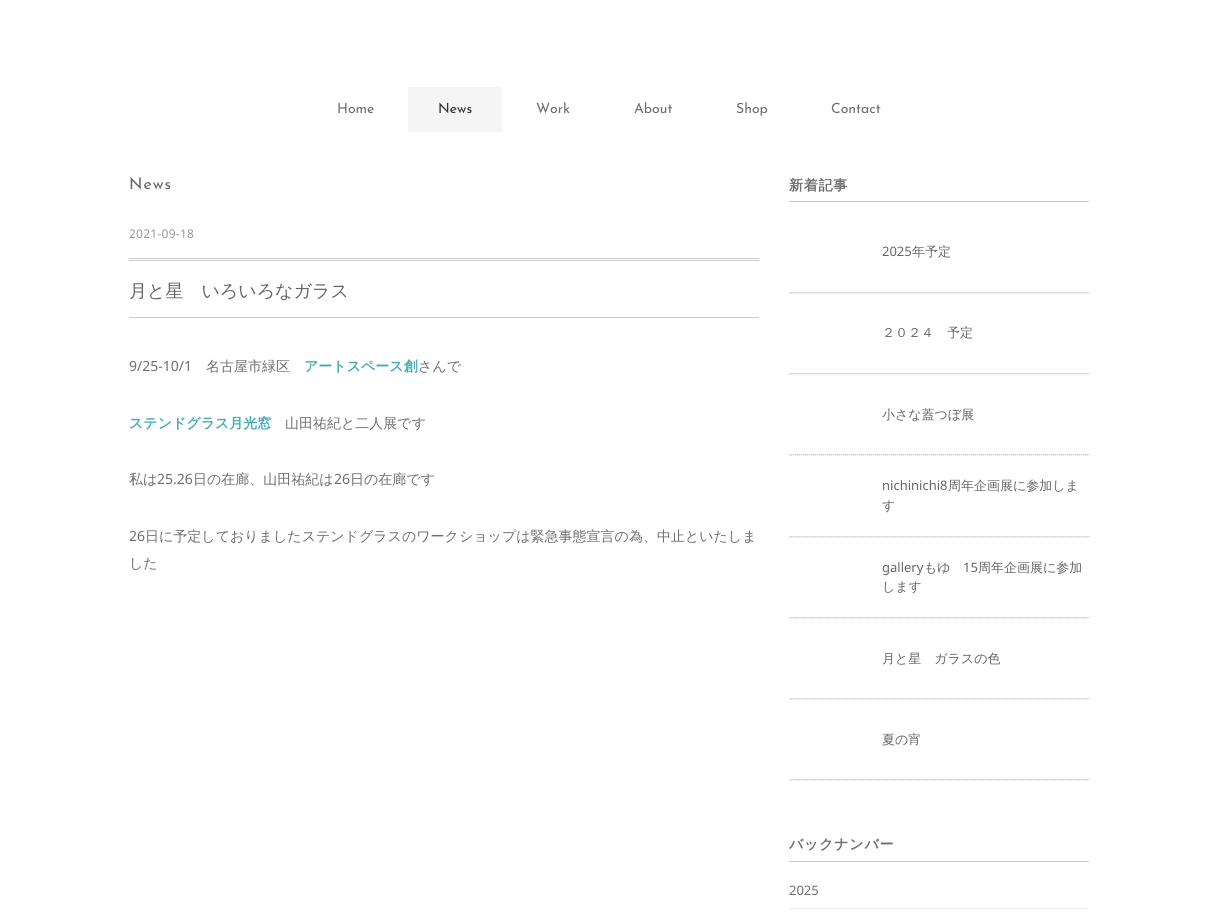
#include <cairo.h>
#include <math.h>
#include <stddef.h>

typedef struct { double x, y; const char *s; } line_t;
typedef struct { double x, y, w, h; unsigned color; } box_t;

static void ink(cairo_t *ctx, unsigned color) {
    cairo_set_source_rgb(ctx, (color >> 16) / 255.0, (color >> 8 & 255) / 255.0, (color & 255) / 255.0);
}

static void write_spaced(cairo_t *ctx, double x, double y, const char *s, double letter, double word) {
    cairo_move_to(ctx, x, y);
    while (*s) {
        char ch[5] = {0};
        int n = 0;
        do ch[n++] = *s++; while ((*s & 0xC0) == 0x80);
        cairo_show_text(ctx, ch);
        cairo_rel_move_to(ctx, letter + word * (*ch == ' '), 0);
    }
}

int main(void) {
    cairo_surface_t *surface = cairo_image_surface_create(CAIRO_FORMAT_RGB24, 1218, 914);
    cairo_t *ctx = cairo_create(surface);
    cairo_font_options_t *options = cairo_font_options_create();
    cairo_font_options_set_hint_metrics(options, CAIRO_HINT_METRICS_OFF);
    cairo_font_options_set_hint_style(options, CAIRO_HINT_STYLE_NONE);
    cairo_set_font_options(ctx, options);
    cairo_set_miter_limit(ctx, 4);
    ink(ctx, 0xFFFFFF);
    cairo_paint(ctx);
    cairo_select_font_face(ctx, "Josefin Sans Thin", CAIRO_FONT_SLANT_NORMAL, CAIRO_FONT_WEIGHT_NORMAL);
    cairo_set_font_size(ctx, 14);
    ink(ctx, 0x6E6E6E);
    cairo_move_to(ctx, 337, 113);
    cairo_show_text(ctx, "Home");
    ink(ctx, 0xF5F5F5);
    cairo_rectangle(ctx, 408, 87, 94, 45);
    cairo_fill(ctx);
    ink(ctx, 0x333333);
    cairo_move_to(ctx, 438, 113);
    cairo_show_text(ctx, "News");
    ink(ctx, 0x6E6E6E);
    {
        static const line_t items[] = {
            {536, 113, "Work"},
            {634, 113, "About"},
            {736, 113, "Shop"},
            {831, 113, "Contact"},
        };
        for (size_t i = 0; i < sizeof items / sizeof *items; i++) {
            cairo_move_to(ctx, items[i].x, items[i].y);
            cairo_show_text(ctx, items[i].s);
        }
    }
    cairo_set_font_size(ctx, 16);
    ink(ctx, 0x666666);
    write_spaced(ctx, 129, 189, "News", 1, 0);
    cairo_select_font_face(ctx, "Noto Sans", CAIRO_FONT_SLANT_NORMAL, CAIRO_FONT_WEIGHT_NORMAL);
    cairo_set_font_size(ctx, 12);
    ink(ctx, 0x999999);
    write_spaced(ctx, 129, 238, "2021-09-18", 0.25, 0);
    {
        static const box_t items[] = {
            {129, 258, 630, 1, 0xCCCCCC},
            {129, 260, 630, 1, 0xCCCCCC},
            {129, 317, 630, 1, 0xCCCCCC},
        };
        for (size_t i = 0; i < sizeof items / sizeof *items; i++) {
            ink(ctx, items[i].color);
            cairo_rectangle(ctx, items[i].x, items[i].y, items[i].w, items[i].h);
            cairo_fill(ctx);
        }
    }
    cairo_select_font_face(ctx, "WenQuanYi Zen Hei Medium", CAIRO_FONT_SLANT_NORMAL, CAIRO_FONT_WEIGHT_NORMAL);
    cairo_set_font_size(ctx, 18);
    ink(ctx, 0x666666);
    cairo_move_to(ctx, 129, 297);
    cairo_show_text(ctx, "月と星　いろいろなガラス");
    cairo_select_font_face(ctx, "Noto Sans", CAIRO_FONT_SLANT_NORMAL, CAIRO_FONT_WEIGHT_NORMAL);
    cairo_set_font_size(ctx, 14);
    ink(ctx, 0x6E6E6E);
    cairo_move_to(ctx, 129, 371);
    cairo_show_text(ctx, "9/25-10/1");
    cairo_select_font_face(ctx, "WenQuanYi Zen Hei Medium", CAIRO_FONT_SLANT_NORMAL, CAIRO_FONT_WEIGHT_NORMAL);
    cairo_move_to(ctx, 206, 371);
    cairo_show_text(ctx, "名古屋市緑区");
    cairo_select_font_face(ctx, "WenQuanYi Zen Hei", CAIRO_FONT_SLANT_NORMAL, CAIRO_FONT_WEIGHT_BOLD);
    ink(ctx, 0x45AAB8);
    cairo_move_to(ctx, 304, 371);
    cairo_show_text(ctx, "アートスペース創");
    cairo_select_font_face(ctx, "WenQuanYi Zen Hei Medium", CAIRO_FONT_SLANT_NORMAL, CAIRO_FONT_WEIGHT_NORMAL);
    ink(ctx, 0x6E6E6E);
    cairo_move_to(ctx, 418, 371);
    cairo_show_text(ctx, "さんで");
    cairo_select_font_face(ctx, "WenQuanYi Zen Hei", CAIRO_FONT_SLANT_NORMAL, CAIRO_FONT_WEIGHT_BOLD);
    ink(ctx, 0x45AAB8);
    cairo_move_to(ctx, 129, 428);
    cairo_show_text(ctx, "ステンドグラス月光窓");
    cairo_select_font_face(ctx, "WenQuanYi Zen Hei Medium", CAIRO_FONT_SLANT_NORMAL, CAIRO_FONT_WEIGHT_NORMAL);
    ink(ctx, 0x6E6E6E);
    cairo_move_to(ctx, 285, 428);
    cairo_show_text(ctx, "山田祐紀と二人展です");
    cairo_move_to(ctx, 129, 484);
    cairo_show_text(ctx, "私は");
    cairo_select_font_face(ctx, "Noto Sans", CAIRO_FONT_SLANT_NORMAL, CAIRO_FONT_WEIGHT_NORMAL);
    cairo_move_to(ctx, 157, 484);
    cairo_show_text(ctx, "25.26");
    cairo_select_font_face(ctx, "WenQuanYi Zen Hei Medium", CAIRO_FONT_SLANT_NORMAL, CAIRO_FONT_WEIGHT_NORMAL);
    cairo_move_to(ctx, 193, 484);
    cairo_show_text(ctx, "日の在廊、山田祐紀は");
    cairo_select_font_face(ctx, "Noto Sans", CAIRO_FONT_SLANT_NORMAL, CAIRO_FONT_WEIGHT_NORMAL);
    cairo_move_to(ctx, 334, 484);
    cairo_show_text(ctx, "26");
    cairo_select_font_face(ctx, "WenQuanYi Zen Hei Medium", CAIRO_FONT_SLANT_NORMAL, CAIRO_FONT_WEIGHT_NORMAL);
    cairo_move_to(ctx, 350, 484);
    cairo_show_text(ctx, "日の在廊です");
    cairo_select_font_face(ctx, "Noto Sans", CAIRO_FONT_SLANT_NORMAL, CAIRO_FONT_WEIGHT_NORMAL);
    cairo_move_to(ctx, 129, 541);
    cairo_show_text(ctx, "26");
    cairo_select_font_face(ctx, "WenQuanYi Zen Hei Medium", CAIRO_FONT_SLANT_NORMAL, CAIRO_FONT_WEIGHT_NORMAL);
    cairo_move_to(ctx, 145, 541);
    cairo_show_text(ctx, "日に予定しておりましたステンドグラスのワークショップは緊急事態宣言の為、中止といたしま");
    cairo_move_to(ctx, 129, 568);
    cairo_show_text(ctx, "した");
    ink(ctx, 0xCCCCCC);
    cairo_rectangle(ctx, 789, 201, 300, 1);
    cairo_fill(ctx);
    cairo_select_font_face(ctx, "WenQuanYi Zen Hei", CAIRO_FONT_SLANT_NORMAL, CAIRO_FONT_WEIGHT_BOLD);
    ink(ctx, 0x6E6E6E);
    write_spaced(ctx, 789, 190, "新着記事", 0.75, 0);
    cairo_new_path(ctx);
    cairo_move_to(ctx, 789, 293.5);
    cairo_line_to(ctx, 1089, 293.5);
    ink(ctx, 0xDDDDDD);
    cairo_set_line_width(ctx, 1);
    cairo_set_dash(ctx, (double[]){1, 1}, 2, 0);
    cairo_stroke(ctx);
    ink(ctx, 0xDCDCDC);
    cairo_rectangle(ctx, 789, 292, 301, 1);
    cairo_fill(ctx);
    cairo_select_font_face(ctx, "Noto Sans", CAIRO_FONT_SLANT_NORMAL, CAIRO_FONT_WEIGHT_NORMAL);
    cairo_set_font_size(ctx, 13);
    ink(ctx, 0x666666);
    cairo_move_to(ctx, 882, 256);
    cairo_show_text(ctx, "2025");
    cairo_select_font_face(ctx, "WenQuanYi Zen Hei Medium", CAIRO_FONT_SLANT_NORMAL, CAIRO_FONT_WEIGHT_NORMAL);
    cairo_move_to(ctx, 912, 256);
    cairo_show_text(ctx, "年予定");
    cairo_new_path(ctx);
    cairo_move_to(ctx, 789, 374.5);
    cairo_line_to(ctx, 1089, 374.5);
    ink(ctx, 0xDDDDDD);
    cairo_stroke(ctx);
    ink(ctx, 0xDCDCDC);
    cairo_rectangle(ctx, 789, 373, 301, 1);
    cairo_fill(ctx);
    ink(ctx, 0x666666);
    cairo_move_to(ctx, 882, 337);
    cairo_show_text(ctx, "２０２４　予定");
    cairo_new_path(ctx);
    cairo_move_to(ctx, 789, 455.5);
    cairo_line_to(ctx, 1089, 455.5);
    ink(ctx, 0xDDDDDD);
    cairo_stroke(ctx);
    ink(ctx, 0xDCDCDC);
    cairo_rectangle(ctx, 789, 454, 301, 1);
    cairo_fill(ctx);
    ink(ctx, 0x666666);
    cairo_move_to(ctx, 882, 419);
    cairo_show_text(ctx, "小さな蓋つぼ展");
    cairo_new_path(ctx);
    cairo_move_to(ctx, 789, 537.5);
    cairo_line_to(ctx, 1089, 537.5);
    ink(ctx, 0xDDDDDD);
    cairo_stroke(ctx);
    ink(ctx, 0xDCDCDC);
    cairo_rectangle(ctx, 789, 536, 301, 1);
    cairo_fill(ctx);
    cairo_select_font_face(ctx, "Noto Sans", CAIRO_FONT_SLANT_NORMAL, CAIRO_FONT_WEIGHT_NORMAL);
    ink(ctx, 0x666666);
    cairo_move_to(ctx, 882, 490);
    cairo_show_text(ctx, "nichinichi8");
    cairo_select_font_face(ctx, "WenQuanYi Zen Hei Medium", CAIRO_FONT_SLANT_NORMAL, CAIRO_FONT_WEIGHT_NORMAL);
    cairo_move_to(ctx, 948, 490);
    cairo_show_text(ctx, "周年企画展に参加しま");
    cairo_move_to(ctx, 882, 510);
    cairo_show_text(ctx, "す");
    cairo_new_path(ctx);
    cairo_move_to(ctx, 789, 618.5);
    cairo_line_to(ctx, 1089, 618.5);
    ink(ctx, 0xDDDDDD);
    cairo_stroke(ctx);
    ink(ctx, 0xDCDCDC);
    cairo_rectangle(ctx, 789, 617, 301, 1);
    cairo_fill(ctx);
    cairo_select_font_face(ctx, "Noto Sans", CAIRO_FONT_SLANT_NORMAL, CAIRO_FONT_WEIGHT_NORMAL);
    ink(ctx, 0x666666);
    cairo_move_to(ctx, 882, 572);
    cairo_show_text(ctx, "gallery");
    cairo_select_font_face(ctx, "WenQuanYi Zen Hei Medium", CAIRO_FONT_SLANT_NORMAL, CAIRO_FONT_WEIGHT_NORMAL);
    cairo_move_to(ctx, 924, 572);
    cairo_show_text(ctx, "もゆ");
    cairo_select_font_face(ctx, "Noto Sans", CAIRO_FONT_SLANT_NORMAL, CAIRO_FONT_WEIGHT_NORMAL);
    cairo_move_to(ctx, 963, 572);
    cairo_show_text(ctx, "15");
    cairo_select_font_face(ctx, "WenQuanYi Zen Hei Medium", CAIRO_FONT_SLANT_NORMAL, CAIRO_FONT_WEIGHT_NORMAL);
    cairo_move_to(ctx, 978, 572);
    cairo_show_text(ctx, "周年企画展に参加");
    cairo_move_to(ctx, 882, 591);
    cairo_show_text(ctx, "します");
    cairo_new_path(ctx);
    cairo_move_to(ctx, 789, 699.5);
    cairo_line_to(ctx, 1089, 699.5);
    ink(ctx, 0xDDDDDD);
    cairo_stroke(ctx);
    ink(ctx, 0xDCDCDC);
    cairo_rectangle(ctx, 789, 698, 301, 1);
    cairo_fill(ctx);
    ink(ctx, 0x666666);
    cairo_move_to(ctx, 882, 663);
    cairo_show_text(ctx, "月と星　ガラスの色");
    cairo_new_path(ctx);
    cairo_move_to(ctx, 789, 780.5);
    cairo_line_to(ctx, 1089, 780.5);
    ink(ctx, 0xDDDDDD);
    cairo_stroke(ctx);
    ink(ctx, 0xDCDCDC);
    cairo_rectangle(ctx, 789, 779, 301, 1);
    cairo_fill(ctx);
    ink(ctx, 0x666666);
    cairo_move_to(ctx, 882, 744);
    cairo_show_text(ctx, "夏の宵");
    ink(ctx, 0xCCCCCC);
    cairo_rectangle(ctx, 789, 861, 300, 1);
    cairo_fill(ctx);
    cairo_select_font_face(ctx, "WenQuanYi Zen Hei", CAIRO_FONT_SLANT_NORMAL, CAIRO_FONT_WEIGHT_BOLD);
    cairo_set_font_size(ctx, 14);
    ink(ctx, 0x6E6E6E);
    write_spaced(ctx, 789, 849, "バックナンバー", 0.75, 0);
    cairo_new_path(ctx);
    cairo_move_to(ctx, 789, 908.5);
    cairo_line_to(ctx, 1089, 908.5);
    ink(ctx, 0xDDDDDD);
    cairo_stroke(ctx);
    cairo_select_font_face(ctx, "Noto Sans", CAIRO_FONT_SLANT_NORMAL, CAIRO_FONT_WEIGHT_NORMAL);
    cairo_set_font_size(ctx, 13);
    ink(ctx, 0x6E6E6E);
    cairo_move_to(ctx, 789, 895);
    cairo_show_text(ctx, "2025");
    cairo_surface_write_to_png(surface, "image.png");
    cairo_font_options_destroy(options);
    cairo_destroy(ctx);
    cairo_surface_destroy(surface);
    return 0;
}
